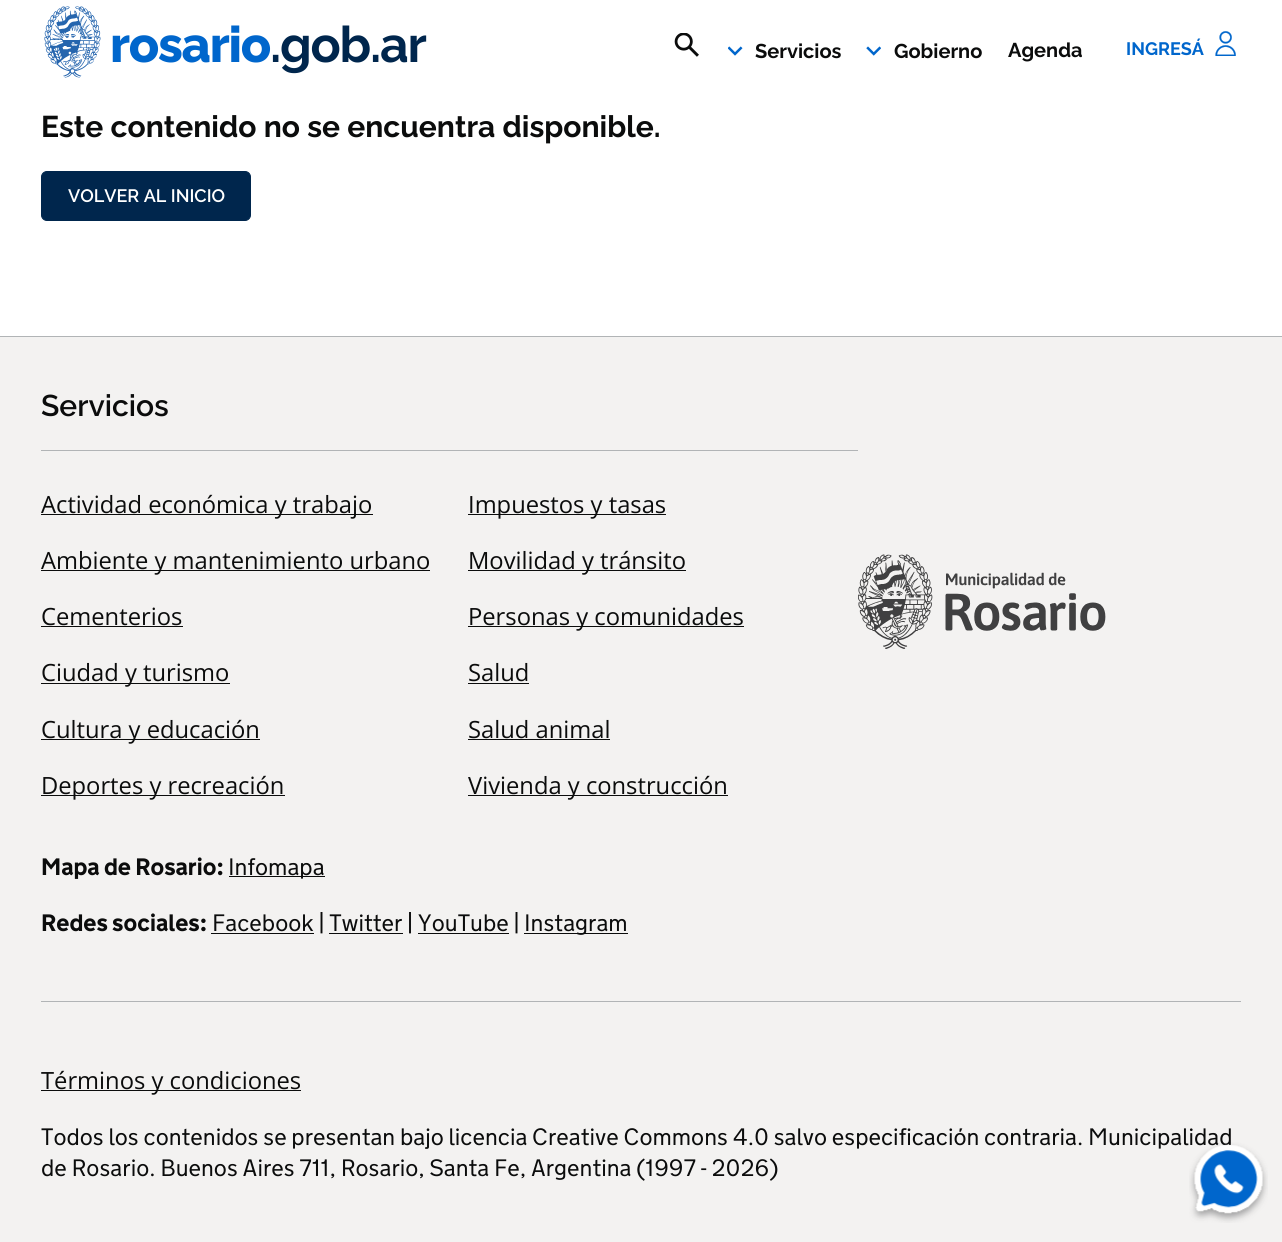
#include <cairo.h>
#include <math.h>
#include <stddef.h>

typedef struct { double x, y, w, h; unsigned color; } box_t;

static void ink(cairo_t *ctx, unsigned color) {
    cairo_set_source_rgb(ctx, (color >> 16) / 255.0, (color >> 8 & 255) / 255.0, (color & 255) / 255.0);
}

static void write_spaced(cairo_t *ctx, double x, double y, const char *s, double letter, double word) {
    cairo_move_to(ctx, x, y);
    while (*s) {
        char ch[5] = {0};
        int n = 0;
        do ch[n++] = *s++; while ((*s & 0xC0) == 0x80);
        cairo_show_text(ctx, ch);
        cairo_rel_move_to(ctx, letter + word * (*ch == ' '), 0);
    }
}

static void round_path(cairo_t *ctx, double x, double y, double w, double h, double r) {
    cairo_new_sub_path(ctx);
    cairo_arc(ctx, x + w - r, y + h - r, r, 0, M_PI / 2);
    cairo_arc(ctx, x + r, y + h - r, r, M_PI / 2, M_PI);
    cairo_arc(ctx, x + r, y + r, r, M_PI, 1.5 * M_PI);
    cairo_arc(ctx, x + w - r, y + r, r, 1.5 * M_PI, 2 * M_PI);
    cairo_close_path(ctx);
}

static void paste(cairo_t *ctx, const char *path, double x, double y, double w, double h) {
    cairo_surface_t *image = cairo_image_surface_create_from_png(path);
    cairo_save(ctx);
    cairo_set_source_surface(ctx, image, x, y);
    cairo_rectangle(ctx, x, y, w, h);
    cairo_fill(ctx);
    cairo_restore(ctx);
    cairo_surface_destroy(image);
}

int main(void) {
    cairo_surface_t *surface = cairo_image_surface_create(CAIRO_FORMAT_RGB24, 1282, 1242);
    cairo_t *ctx = cairo_create(surface);
    cairo_font_options_t *options = cairo_font_options_create();
    cairo_font_options_set_hint_metrics(options, CAIRO_HINT_METRICS_OFF);
    cairo_font_options_set_hint_style(options, CAIRO_HINT_STYLE_NONE);
    cairo_set_font_options(ctx, options);
    cairo_set_miter_limit(ctx, 4);
    ink(ctx, 0xF3F2F1);
    cairo_paint(ctx);
    ink(ctx, 0xFFFFFF);
    cairo_rectangle(ctx, 0, 0, 1282, 336);
    cairo_fill(ctx);
    paste(ctx, "media/1.png", 44, 6, 57, 72);
    cairo_select_font_face(ctx, "Raleway ExtraBold", CAIRO_FONT_SLANT_NORMAL, CAIRO_FONT_WEIGHT_NORMAL);
    cairo_set_font_size(ctx, 50);
    ink(ctx, 0x0066CC);
    write_spaced(ctx, 110, 62, "rosario", -1.25, 0);
    cairo_select_font_face(ctx, "Raleway", CAIRO_FONT_SLANT_NORMAL, CAIRO_FONT_WEIGHT_BOLD);
    ink(ctx, 0x00264D);
    write_spaced(ctx, 270, 62, ".gob.ar", -1.25, 0);
    paste(ctx, "media/2.png", 674, 33, 25, 24);
    paste(ctx, "media/3.png", 728, 46, 15, 10);
    cairo_set_font_size(ctx, 20);
    ink(ctx, 0x0B0C0C);
    cairo_move_to(ctx, 755, 58);
    cairo_show_text(ctx, "Servicios");
    paste(ctx, "media/4.png", 866, 46, 15, 10);
    cairo_move_to(ctx, 894, 58);
    cairo_show_text(ctx, "Gobierno");
    cairo_move_to(ctx, 1008, 57);
    cairo_show_text(ctx, "Agenda");
    cairo_set_font_size(ctx, 18);
    ink(ctx, 0x0066CC);
    cairo_move_to(ctx, 1126, 55);
    cairo_show_text(ctx, "INGRESÁ");
    paste(ctx, "media/5.png", 1215, 31, 21, 25);
    cairo_set_font_size(ctx, 30);
    ink(ctx, 0x0B0C0C);
    cairo_move_to(ctx, 41, 137);
    cairo_show_text(ctx, "Este contenido no se encuentra disponible.");
    ink(ctx, 0x00264D);
    round_path(ctx, 41.5, 171.5, 209, 49, 5.5);
    cairo_fill_preserve(ctx);
    cairo_set_line_width(ctx, 1);
    cairo_stroke(ctx);
    cairo_select_font_face(ctx, "Raleway SemiBold", CAIRO_FONT_SLANT_NORMAL, CAIRO_FONT_WEIGHT_NORMAL);
    cairo_set_font_size(ctx, 18);
    ink(ctx, 0xFFFFFF);
    cairo_move_to(ctx, 68, 202);
    cairo_show_text(ctx, "VOLVER AL INICIO");
    cairo_select_font_face(ctx, "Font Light", CAIRO_FONT_SLANT_NORMAL, CAIRO_FONT_WEIGHT_NORMAL);
    cairo_set_font_size(ctx, 23.75);
    ink(ctx, 0x0B0C0C);
    cairo_move_to(ctx, 41, 1145);
    cairo_show_text(ctx, "Todos los contenidos se presentan bajo licencia Creative Commons 4.0 salvo especificación contraria. Municipalidad");
    paste(ctx, "media/6.png", 1189, 1142, 79, 81);
    ink(ctx, 0xB1B4B6);
    cairo_rectangle(ctx, 0, 336, 1282, 1);
    cairo_fill(ctx);
    cairo_rectangle(ctx, 41, 450, 817, 1);
    cairo_fill(ctx);
    cairo_select_font_face(ctx, "Raleway SemiBold", CAIRO_FONT_SLANT_NORMAL, CAIRO_FONT_WEIGHT_NORMAL);
    cairo_set_font_size(ctx, 30);
    ink(ctx, 0x0B0C0C);
    cairo_move_to(ctx, 41, 416);
    cairo_show_text(ctx, "Servicios");
    cairo_rectangle(ctx, 41, 514, 332, 1);
    cairo_fill(ctx);
    cairo_select_font_face(ctx, "Open Sans", CAIRO_FONT_SLANT_NORMAL, CAIRO_FONT_WEIGHT_NORMAL);
    cairo_set_font_size(ctx, 23.75);
    cairo_move_to(ctx, 41, 513);
    cairo_show_text(ctx, "Actividad económica y trabajo");
    cairo_rectangle(ctx, 468, 514, 198, 1);
    cairo_fill(ctx);
    cairo_move_to(ctx, 468, 513);
    cairo_show_text(ctx, "Impuestos y tasas");
    cairo_rectangle(ctx, 41, 570, 389, 1);
    cairo_fill(ctx);
    cairo_move_to(ctx, 41, 569);
    cairo_show_text(ctx, "Ambiente y mantenimiento urbano");
    cairo_rectangle(ctx, 468, 570, 218, 1);
    cairo_fill(ctx);
    cairo_move_to(ctx, 468, 569);
    cairo_show_text(ctx, "Movilidad y tránsito");
    cairo_move_to(ctx, 41, 625);
    cairo_show_text(ctx, "Cementerios");
    cairo_rectangle(ctx, 41, 626, 142, 1);
    cairo_fill(ctx);
    cairo_rectangle(ctx, 468, 626, 276, 1);
    cairo_fill(ctx);
    cairo_move_to(ctx, 468, 625);
    cairo_show_text(ctx, "Personas y comunidades");
    cairo_rectangle(ctx, 41, 683, 189, 1);
    cairo_fill(ctx);
    cairo_move_to(ctx, 41, 681);
    cairo_show_text(ctx, "Ciudad y turismo");
    cairo_move_to(ctx, 468, 681);
    cairo_show_text(ctx, "Salud");
    cairo_rectangle(ctx, 468, 683, 61, 1);
    cairo_fill(ctx);
    cairo_rectangle(ctx, 41, 739, 219, 1);
    cairo_fill(ctx);
    cairo_move_to(ctx, 41, 738);
    cairo_show_text(ctx, "Cultura y educación");
    cairo_move_to(ctx, 468, 738);
    cairo_show_text(ctx, "Salud animal");
    cairo_rectangle(ctx, 468, 739, 142, 1);
    cairo_fill(ctx);
    cairo_rectangle(ctx, 41, 795, 244, 1);
    cairo_fill(ctx);
    cairo_move_to(ctx, 41, 794);
    cairo_show_text(ctx, "Deportes y recreación");
    cairo_rectangle(ctx, 468, 795, 260, 1);
    cairo_fill(ctx);
    cairo_move_to(ctx, 468, 794);
    cairo_show_text(ctx, "Vivienda y construcción");
    paste(ctx, "media/7.png", 858, 554, 248, 95);
    cairo_select_font_face(ctx, "Font", CAIRO_FONT_SLANT_NORMAL, CAIRO_FONT_WEIGHT_BOLD);
    cairo_move_to(ctx, 41, 875);
    cairo_show_text(ctx, "Mapa de Rosario:");
    cairo_rectangle(ctx, 229, 876, 96, 1);
    cairo_fill(ctx);
    cairo_select_font_face(ctx, "Font Light", CAIRO_FONT_SLANT_NORMAL, CAIRO_FONT_WEIGHT_NORMAL);
    cairo_move_to(ctx, 228, 875);
    cairo_show_text(ctx, "Infomapa");
    cairo_select_font_face(ctx, "Font", CAIRO_FONT_SLANT_NORMAL, CAIRO_FONT_WEIGHT_BOLD);
    cairo_move_to(ctx, 41, 931);
    cairo_show_text(ctx, "Redes sociales:");
    cairo_rectangle(ctx, 211, 933, 103, 1);
    cairo_fill(ctx);
    cairo_select_font_face(ctx, "Font Light", CAIRO_FONT_SLANT_NORMAL, CAIRO_FONT_WEIGHT_NORMAL);
    cairo_move_to(ctx, 212, 931);
    cairo_show_text(ctx, "Facebook | Twitter | YouTube |");
    cairo_rectangle(ctx, 524, 933, 104, 1);
    cairo_fill(ctx);
    cairo_move_to(ctx, 524, 931);
    cairo_show_text(ctx, "Instagram");
    {
        static const box_t items[] = {
            {329, 933, 74, 1, 0x0B0C0C},
            {418, 933, 91, 1, 0x0B0C0C},
            {41, 1001, 1200, 1, 0xB1B4B6},
            {41, 1090, 260, 1, 0x0B0C0C},
        };
        for (size_t i = 0; i < sizeof items / sizeof *items; i++) {
            ink(ctx, items[i].color);
            cairo_rectangle(ctx, items[i].x, items[i].y, items[i].w, items[i].h);
            cairo_fill(ctx);
        }
    }
    cairo_select_font_face(ctx, "Open Sans", CAIRO_FONT_SLANT_NORMAL, CAIRO_FONT_WEIGHT_NORMAL);
    cairo_move_to(ctx, 41, 1089);
    cairo_show_text(ctx, "Términos y condiciones");
    cairo_select_font_face(ctx, "Font Light", CAIRO_FONT_SLANT_NORMAL, CAIRO_FONT_WEIGHT_NORMAL);
    cairo_move_to(ctx, 41, 1176);
    cairo_show_text(ctx, "de Rosario. Buenos Aires 711, Rosario, Santa Fe, Argentina (1997 - 2026)");
    cairo_surface_write_to_png(surface, "image.png");
    cairo_font_options_destroy(options);
    cairo_destroy(ctx);
    cairo_surface_destroy(surface);
    return 0;
}
